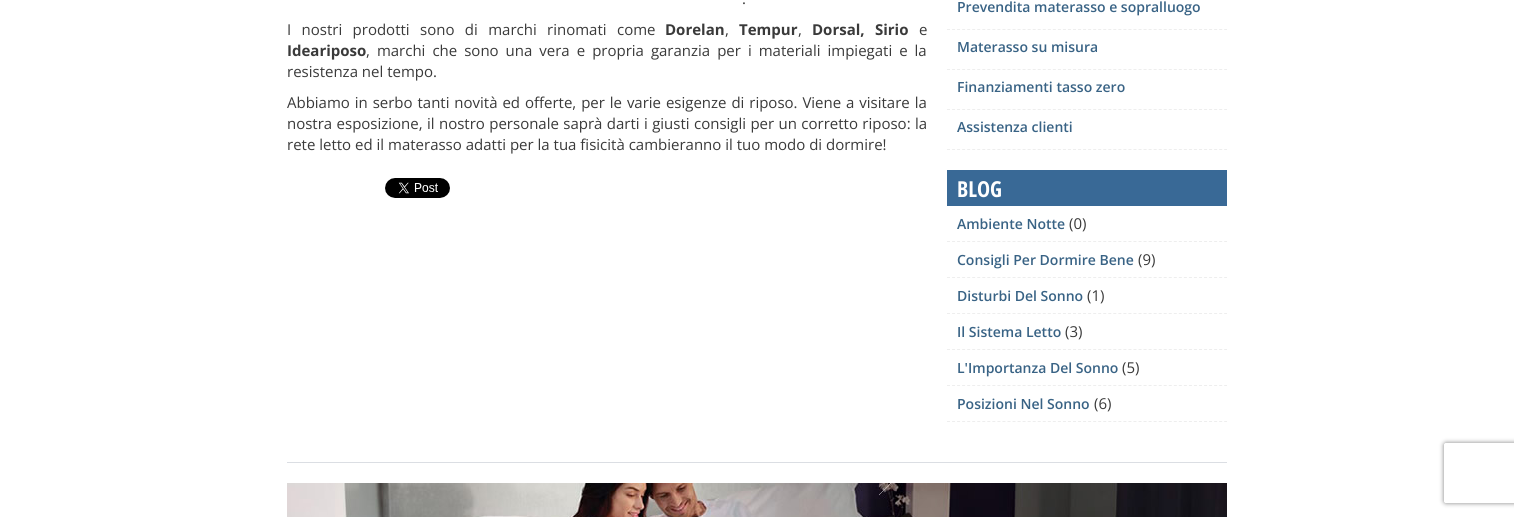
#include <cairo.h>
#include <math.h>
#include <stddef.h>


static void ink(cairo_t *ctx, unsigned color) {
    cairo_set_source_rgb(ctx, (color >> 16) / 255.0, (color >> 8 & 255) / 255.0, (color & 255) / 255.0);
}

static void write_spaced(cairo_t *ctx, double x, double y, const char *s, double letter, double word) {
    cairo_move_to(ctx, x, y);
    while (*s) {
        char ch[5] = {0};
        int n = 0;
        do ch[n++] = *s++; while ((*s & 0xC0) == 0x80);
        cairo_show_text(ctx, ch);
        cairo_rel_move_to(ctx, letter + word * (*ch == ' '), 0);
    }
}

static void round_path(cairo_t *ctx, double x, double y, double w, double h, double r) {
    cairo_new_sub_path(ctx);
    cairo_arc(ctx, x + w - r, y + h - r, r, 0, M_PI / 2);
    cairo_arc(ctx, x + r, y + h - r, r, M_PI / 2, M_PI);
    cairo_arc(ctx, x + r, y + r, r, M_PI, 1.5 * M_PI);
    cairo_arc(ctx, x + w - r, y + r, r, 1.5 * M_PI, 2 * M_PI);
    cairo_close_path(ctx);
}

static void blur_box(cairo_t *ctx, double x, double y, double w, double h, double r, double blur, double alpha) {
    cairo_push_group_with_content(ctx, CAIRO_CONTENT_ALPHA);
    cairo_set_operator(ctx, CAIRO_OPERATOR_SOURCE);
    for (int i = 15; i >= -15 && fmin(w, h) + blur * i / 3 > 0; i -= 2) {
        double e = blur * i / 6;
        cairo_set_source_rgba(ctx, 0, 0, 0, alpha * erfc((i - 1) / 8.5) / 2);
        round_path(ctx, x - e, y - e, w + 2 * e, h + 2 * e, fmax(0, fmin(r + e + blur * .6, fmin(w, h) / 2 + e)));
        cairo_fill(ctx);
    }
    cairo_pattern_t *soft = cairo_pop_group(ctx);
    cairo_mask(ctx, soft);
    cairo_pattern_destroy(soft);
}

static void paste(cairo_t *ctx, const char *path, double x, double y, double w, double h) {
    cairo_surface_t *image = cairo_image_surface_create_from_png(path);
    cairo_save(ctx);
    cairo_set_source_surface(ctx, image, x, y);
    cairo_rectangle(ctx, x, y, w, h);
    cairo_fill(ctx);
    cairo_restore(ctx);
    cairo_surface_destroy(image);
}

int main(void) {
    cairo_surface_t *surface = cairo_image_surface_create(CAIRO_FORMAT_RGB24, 1514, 517);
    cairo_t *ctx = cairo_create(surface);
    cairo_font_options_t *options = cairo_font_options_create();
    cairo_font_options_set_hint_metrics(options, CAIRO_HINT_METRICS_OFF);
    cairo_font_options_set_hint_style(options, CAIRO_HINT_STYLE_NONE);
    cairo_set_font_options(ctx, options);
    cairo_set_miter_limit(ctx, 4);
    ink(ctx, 0xFFFFFF);
    cairo_paint(ctx);
    cairo_select_font_face(ctx, "Open Sans", CAIRO_FONT_SLANT_NORMAL, CAIRO_FONT_WEIGHT_NORMAL);
    cairo_set_font_size(ctx, 15);
    ink(ctx, 0x3A3A3A);
    cairo_move_to(ctx, 742, 4);
    cairo_show_text(ctx, ".");
    write_spaced(ctx, 287, 35, "I nostri prodotti sono di marchi rinomati come", 0, 6.5);
    cairo_select_font_face(ctx, "Open Sans", CAIRO_FONT_SLANT_NORMAL, CAIRO_FONT_WEIGHT_BOLD);
    cairo_move_to(ctx, 665, 35);
    cairo_show_text(ctx, "Dorelan");
    cairo_select_font_face(ctx, "Open Sans", CAIRO_FONT_SLANT_NORMAL, CAIRO_FONT_WEIGHT_NORMAL);
    cairo_move_to(ctx, 725, 35);
    cairo_show_text(ctx, ",");
    cairo_select_font_face(ctx, "Open Sans", CAIRO_FONT_SLANT_NORMAL, CAIRO_FONT_WEIGHT_BOLD);
    cairo_move_to(ctx, 739, 35);
    cairo_show_text(ctx, "Tempur");
    cairo_select_font_face(ctx, "Open Sans", CAIRO_FONT_SLANT_NORMAL, CAIRO_FONT_WEIGHT_NORMAL);
    cairo_move_to(ctx, 798, 35);
    cairo_show_text(ctx, ",");
    cairo_select_font_face(ctx, "Open Sans", CAIRO_FONT_SLANT_NORMAL, CAIRO_FONT_WEIGHT_BOLD);
    write_spaced(ctx, 812, 35, "Dorsal, Sirio", 0, 6.5);
    cairo_select_font_face(ctx, "Open Sans", CAIRO_FONT_SLANT_NORMAL, CAIRO_FONT_WEIGHT_NORMAL);
    cairo_move_to(ctx, 919, 35);
    cairo_show_text(ctx, "e");
    cairo_select_font_face(ctx, "Open Sans", CAIRO_FONT_SLANT_NORMAL, CAIRO_FONT_WEIGHT_BOLD);
    cairo_move_to(ctx, 287, 56);
    cairo_show_text(ctx, "Ideariposo");
    cairo_select_font_face(ctx, "Open Sans", CAIRO_FONT_SLANT_NORMAL, CAIRO_FONT_WEIGHT_NORMAL);
    write_spaced(ctx, 366, 56, ", marchi che sono una vera e propria garanzia per i materiali impiegati e la", 0, 3.1);
    cairo_move_to(ctx, 287, 77);
    cairo_show_text(ctx, "resistenza nel tempo.");
    write_spaced(ctx, 287, 108, "Abbiamo in serbo tanti novità ed offerte, per le varie esigenze di riposo. Viene a visitare la", 0, 1);
    write_spaced(ctx, 287, 129, "nostra esposizione, il nostro personale saprà darti i giusti consigli per un corretto riposo: la", 0, 0.5);
    cairo_move_to(ctx, 287, 150);
    cairo_show_text(ctx, "rete letto ed il materasso adatti per la tua fisicità cambieranno il tuo modo di dormire!");
    paste(ctx, "media/1.png", 385, 178, 65, 20);
    cairo_new_path(ctx);
    cairo_move_to(ctx, 947, 29.5);
    cairo_line_to(ctx, 1227, 29.5);
    ink(ctx, 0xEEEEEE);
    cairo_set_line_width(ctx, 1);
    cairo_set_dash(ctx, (double[]){3, 2.04}, 2, 0);
    cairo_stroke(ctx);
    cairo_select_font_face(ctx, "Open Sans SemiBold", CAIRO_FONT_SLANT_NORMAL, CAIRO_FONT_WEIGHT_NORMAL);
    cairo_set_font_size(ctx, 14);
    ink(ctx, 0x396385);
    cairo_move_to(ctx, 957, 12);
    cairo_show_text(ctx, "Prevendita materasso e sopralluogo");
    cairo_new_path(ctx);
    cairo_move_to(ctx, 947, 69.5);
    cairo_line_to(ctx, 1227, 69.5);
    ink(ctx, 0xEEEEEE);
    cairo_stroke(ctx);
    ink(ctx, 0x396385);
    cairo_move_to(ctx, 957, 52);
    cairo_show_text(ctx, "Materasso su misura");
    cairo_new_path(ctx);
    cairo_move_to(ctx, 947, 109.5);
    cairo_line_to(ctx, 1227, 109.5);
    ink(ctx, 0xEEEEEE);
    cairo_stroke(ctx);
    ink(ctx, 0x396385);
    cairo_move_to(ctx, 957, 92);
    cairo_show_text(ctx, "Finanziamenti tasso zero");
    cairo_new_path(ctx);
    cairo_move_to(ctx, 947, 149.5);
    cairo_line_to(ctx, 1227, 149.5);
    ink(ctx, 0xEEEEEE);
    cairo_stroke(ctx);
    ink(ctx, 0x396385);
    cairo_move_to(ctx, 957, 132);
    cairo_show_text(ctx, "Assistenza clienti");
    ink(ctx, 0x396996);
    cairo_rectangle(ctx, 947, 170, 280, 36);
    cairo_fill(ctx);
    cairo_select_font_face(ctx, "Open Sans Condensed", CAIRO_FONT_SLANT_NORMAL, CAIRO_FONT_WEIGHT_BOLD);
    cairo_set_font_size(ctx, 22);
    ink(ctx, 0xFFFFFF);
    cairo_move_to(ctx, 957, 197);
    cairo_show_text(ctx, "BLOG");
    cairo_new_path(ctx);
    cairo_move_to(ctx, 947, 241.5);
    cairo_line_to(ctx, 1227, 241.5);
    ink(ctx, 0xEEEEEE);
    cairo_stroke(ctx);
    cairo_select_font_face(ctx, "Open Sans SemiBold", CAIRO_FONT_SLANT_NORMAL, CAIRO_FONT_WEIGHT_NORMAL);
    cairo_set_font_size(ctx, 14);
    ink(ctx, 0x396385);
    cairo_move_to(ctx, 957, 229);
    cairo_show_text(ctx, "Ambiente Notte");
    cairo_select_font_face(ctx, "Open Sans", CAIRO_FONT_SLANT_NORMAL, CAIRO_FONT_WEIGHT_NORMAL);
    cairo_set_font_size(ctx, 15);
    ink(ctx, 0x3A3A3A);
    cairo_move_to(ctx, 1069, 229);
    cairo_show_text(ctx, "(0)");
    cairo_new_path(ctx);
    cairo_move_to(ctx, 947, 277.5);
    cairo_line_to(ctx, 1227, 277.5);
    ink(ctx, 0xEEEEEE);
    cairo_stroke(ctx);
    cairo_select_font_face(ctx, "Open Sans SemiBold", CAIRO_FONT_SLANT_NORMAL, CAIRO_FONT_WEIGHT_NORMAL);
    cairo_set_font_size(ctx, 14);
    ink(ctx, 0x396385);
    cairo_move_to(ctx, 957, 265);
    cairo_show_text(ctx, "Consigli Per Dormire Bene");
    cairo_select_font_face(ctx, "Open Sans", CAIRO_FONT_SLANT_NORMAL, CAIRO_FONT_WEIGHT_NORMAL);
    cairo_set_font_size(ctx, 15);
    ink(ctx, 0x3A3A3A);
    cairo_move_to(ctx, 1138, 265);
    cairo_show_text(ctx, "(9)");
    cairo_new_path(ctx);
    cairo_move_to(ctx, 947, 313.5);
    cairo_line_to(ctx, 1227, 313.5);
    ink(ctx, 0xEEEEEE);
    cairo_stroke(ctx);
    cairo_select_font_face(ctx, "Open Sans SemiBold", CAIRO_FONT_SLANT_NORMAL, CAIRO_FONT_WEIGHT_NORMAL);
    cairo_set_font_size(ctx, 14);
    ink(ctx, 0x396385);
    cairo_move_to(ctx, 957, 301);
    cairo_show_text(ctx, "Disturbi Del Sonno");
    cairo_select_font_face(ctx, "Open Sans", CAIRO_FONT_SLANT_NORMAL, CAIRO_FONT_WEIGHT_NORMAL);
    cairo_set_font_size(ctx, 15);
    ink(ctx, 0x3A3A3A);
    cairo_move_to(ctx, 1087, 301);
    cairo_show_text(ctx, "(1)");
    cairo_new_path(ctx);
    cairo_move_to(ctx, 947, 349.5);
    cairo_line_to(ctx, 1227, 349.5);
    ink(ctx, 0xEEEEEE);
    cairo_stroke(ctx);
    cairo_select_font_face(ctx, "Open Sans SemiBold", CAIRO_FONT_SLANT_NORMAL, CAIRO_FONT_WEIGHT_NORMAL);
    cairo_set_font_size(ctx, 14);
    ink(ctx, 0x396385);
    cairo_move_to(ctx, 957, 337);
    cairo_show_text(ctx, "Il Sistema Letto");
    cairo_select_font_face(ctx, "Open Sans", CAIRO_FONT_SLANT_NORMAL, CAIRO_FONT_WEIGHT_NORMAL);
    cairo_set_font_size(ctx, 15);
    ink(ctx, 0x3A3A3A);
    cairo_move_to(ctx, 1065, 337);
    cairo_show_text(ctx, "(3)");
    cairo_new_path(ctx);
    cairo_move_to(ctx, 947, 385.5);
    cairo_line_to(ctx, 1227, 385.5);
    ink(ctx, 0xEEEEEE);
    cairo_stroke(ctx);
    cairo_select_font_face(ctx, "Open Sans SemiBold", CAIRO_FONT_SLANT_NORMAL, CAIRO_FONT_WEIGHT_NORMAL);
    cairo_set_font_size(ctx, 14);
    ink(ctx, 0x396385);
    cairo_move_to(ctx, 957, 373);
    cairo_show_text(ctx, "L'Importanza Del Sonno");
    cairo_select_font_face(ctx, "Open Sans", CAIRO_FONT_SLANT_NORMAL, CAIRO_FONT_WEIGHT_NORMAL);
    cairo_set_font_size(ctx, 15);
    ink(ctx, 0x3A3A3A);
    cairo_move_to(ctx, 1122, 373);
    cairo_show_text(ctx, "(5)");
    cairo_new_path(ctx);
    cairo_move_to(ctx, 947, 421.5);
    cairo_line_to(ctx, 1227, 421.5);
    ink(ctx, 0xEEEEEE);
    cairo_stroke(ctx);
    cairo_select_font_face(ctx, "Open Sans SemiBold", CAIRO_FONT_SLANT_NORMAL, CAIRO_FONT_WEIGHT_NORMAL);
    cairo_set_font_size(ctx, 14);
    ink(ctx, 0x396385);
    cairo_move_to(ctx, 957, 409);
    cairo_show_text(ctx, "Posizioni Nel Sonno");
    cairo_select_font_face(ctx, "Open Sans", CAIRO_FONT_SLANT_NORMAL, CAIRO_FONT_WEIGHT_NORMAL);
    cairo_set_font_size(ctx, 15);
    ink(ctx, 0x3A3A3A);
    cairo_move_to(ctx, 1094, 409);
    cairo_show_text(ctx, "(6)");
    ink(ctx, 0xDBDEE3);
    cairo_rectangle(ctx, 287, 462, 940, 1);
    cairo_fill(ctx);
    paste(ctx, "media/2.png", 287, 483, 940, 34);
    cairo_save(ctx);
    cairo_set_fill_rule(ctx, CAIRO_FILL_RULE_EVEN_ODD);
    cairo_new_path(ctx);
    cairo_move_to(ctx, 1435, 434);
    cairo_line_to(ctx, 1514, 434);
    cairo_line_to(ctx, 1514, 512);
    cairo_line_to(ctx, 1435, 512);
    cairo_close_path(ctx);
    cairo_move_to(ctx, 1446, 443);
    cairo_line_to(ctx, 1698, 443);
    cairo_curve_to(ctx, 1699, 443, 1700, 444, 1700, 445);
    cairo_line_to(ctx, 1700, 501);
    cairo_curve_to(ctx, 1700, 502, 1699, 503, 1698, 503);
    cairo_line_to(ctx, 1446, 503);
    cairo_curve_to(ctx, 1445, 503, 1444, 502, 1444, 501);
    cairo_line_to(ctx, 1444, 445);
    cairo_curve_to(ctx, 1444, 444, 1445, 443, 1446, 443);
    cairo_close_path(ctx);
    cairo_clip(ctx);
    ink(ctx, 0x808080);
    blur_box(ctx, 1444, 443, 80, 60, 2, 2.5, 1);
    cairo_restore(ctx);
    cairo_surface_write_to_png(surface, "image.png");
    cairo_font_options_destroy(options);
    cairo_destroy(ctx);
    cairo_surface_destroy(surface);
    return 0;
}
